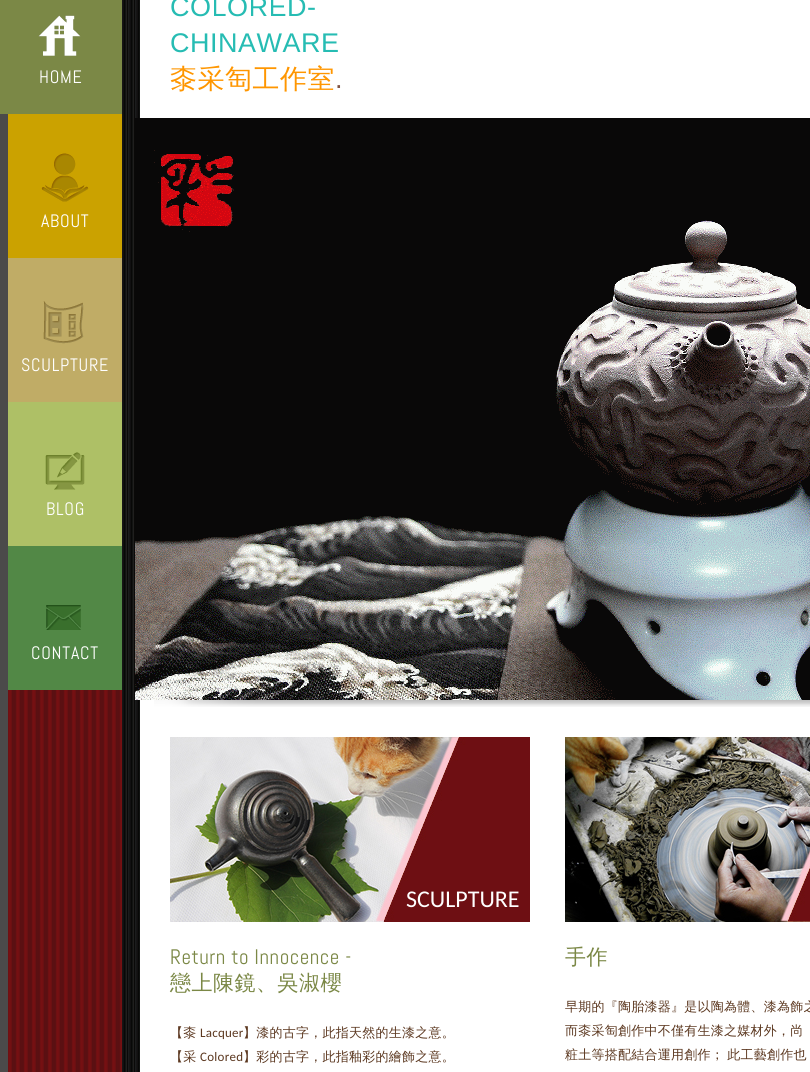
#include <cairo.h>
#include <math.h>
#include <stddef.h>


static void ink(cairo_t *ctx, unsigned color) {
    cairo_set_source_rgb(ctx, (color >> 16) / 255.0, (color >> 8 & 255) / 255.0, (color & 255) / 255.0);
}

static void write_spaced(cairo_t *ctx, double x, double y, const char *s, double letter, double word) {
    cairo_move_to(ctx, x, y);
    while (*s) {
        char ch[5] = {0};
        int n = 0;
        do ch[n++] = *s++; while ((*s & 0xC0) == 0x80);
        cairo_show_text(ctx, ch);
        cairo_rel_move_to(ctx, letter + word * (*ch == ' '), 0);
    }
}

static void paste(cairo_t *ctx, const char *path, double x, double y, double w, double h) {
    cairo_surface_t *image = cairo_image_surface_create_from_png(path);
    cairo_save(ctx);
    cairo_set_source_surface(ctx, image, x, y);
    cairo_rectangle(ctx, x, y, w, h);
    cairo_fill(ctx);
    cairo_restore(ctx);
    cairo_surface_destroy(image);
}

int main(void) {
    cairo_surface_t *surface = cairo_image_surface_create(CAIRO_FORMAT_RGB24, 810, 1072);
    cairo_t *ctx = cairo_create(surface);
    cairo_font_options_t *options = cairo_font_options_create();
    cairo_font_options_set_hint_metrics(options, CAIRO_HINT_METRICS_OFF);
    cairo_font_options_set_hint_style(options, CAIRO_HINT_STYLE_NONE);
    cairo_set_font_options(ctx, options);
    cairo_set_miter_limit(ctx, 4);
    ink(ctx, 0xFFFFFF);
    cairo_paint(ctx);
    paste(ctx, "media/1.png", 0, 0, 140, 1072);
    ink(ctx, 0x7B8846);
    cairo_rectangle(ctx, 0, 0, 122, 114);
    cairo_fill(ctx);
    paste(ctx, "media/2.png", 38, 15, 43, 41);
    cairo_select_font_face(ctx, "Abel", CAIRO_FONT_SLANT_NORMAL, CAIRO_FONT_WEIGHT_NORMAL);
    cairo_set_font_size(ctx, 18);
    ink(ctx, 0xFFFFFF);
    write_spaced(ctx, 39, 83, "HOME", 0.75, 0);
    ink(ctx, 0xCBA200);
    cairo_rectangle(ctx, 8, 114, 114, 144);
    cairo_fill(ctx);
    paste(ctx, "media/3.png", 41, 153, 48, 49);
    ink(ctx, 0xFFFFFF);
    write_spaced(ctx, 41, 227, "ABOUT", 0.75, 0);
    ink(ctx, 0xC0AC66);
    cairo_rectangle(ctx, 8, 258, 114, 144);
    cairo_fill(ctx);
    paste(ctx, "media/4.png", 43, 301, 41, 43);
    ink(ctx, 0xFFFFFF);
    write_spaced(ctx, 21, 371, "SCULPTURE", 0.75, 0);
    ink(ctx, 0xAEC066);
    cairo_rectangle(ctx, 8, 402, 114, 144);
    cairo_fill(ctx);
    paste(ctx, "media/5.png", 45, 452, 40, 38);
    ink(ctx, 0xFFFFFF);
    write_spaced(ctx, 46, 515, "BLOG", 0.75, 0);
    ink(ctx, 0x528846);
    cairo_rectangle(ctx, 8, 546, 114, 144);
    cairo_fill(ctx);
    paste(ctx, "media/6.png", 46, 605, 35, 25);
    ink(ctx, 0xFFFFFF);
    write_spaced(ctx, 31, 659, "CONTACT", 0.75, 0);
    cairo_select_font_face(ctx, "Liberation Sans", CAIRO_FONT_SLANT_NORMAL, CAIRO_FONT_WEIGHT_NORMAL);
    cairo_set_font_size(ctx, 27);
    ink(ctx, 0x26BCB3);
    write_spaced(ctx, 170, 16, "COLORED-", 0.5, 0);
    write_spaced(ctx, 170, 52, "CHINAWARE", 0.5, 0);
    cairo_select_font_face(ctx, "WenQuanYi Zen Hei Medium", CAIRO_FONT_SLANT_NORMAL, CAIRO_FONT_WEIGHT_NORMAL);
    ink(ctx, 0xFF9600);
    write_spaced(ctx, 170, 88, "桼采匋工作室", 0.5, 0);
    cairo_select_font_face(ctx, "Liberation Sans", CAIRO_FONT_SLANT_NORMAL, CAIRO_FONT_WEIGHT_NORMAL);
    ink(ctx, 0x825444);
    write_spaced(ctx, 335, 88, ".", 0.5, 0);
    paste(ctx, "media/7.png", 154, 700, 656, 7);
    paste(ctx, "media/8.png", 135, 118, 675, 582);
    paste(ctx, "media/9.png", 170, 737, 360, 185);
    cairo_select_font_face(ctx, "Carlito", CAIRO_FONT_SLANT_NORMAL, CAIRO_FONT_WEIGHT_NORMAL);
    cairo_set_font_size(ctx, 24);
    ink(ctx, 0xFFFFFF);
    cairo_move_to(ctx, 406, 907);
    cairo_show_text(ctx, "SCULPTURE");
    cairo_select_font_face(ctx, "Abel", CAIRO_FONT_SLANT_NORMAL, CAIRO_FONT_WEIGHT_NORMAL);
    cairo_set_font_size(ctx, 21);
    ink(ctx, 0x7B8846);
    write_spaced(ctx, 170, 964, "Return to Innocence -", 0.5, 0);
    cairo_select_font_face(ctx, "WenQuanYi Zen Hei Medium", CAIRO_FONT_SLANT_NORMAL, CAIRO_FONT_WEIGHT_NORMAL);
    write_spaced(ctx, 170, 990, "戀上陳鏡、吳淑櫻", 0.5, 0);
    cairo_set_font_size(ctx, 13);
    ink(ctx, 0x5C3820);
    write_spaced(ctx, 170, 1037, "【桼", 0.25, 0);
    cairo_select_font_face(ctx, "Carlito", CAIRO_FONT_SLANT_NORMAL, CAIRO_FONT_WEIGHT_NORMAL);
    write_spaced(ctx, 200, 1037, "Lacquer", 0.25, 0);
    cairo_select_font_face(ctx, "WenQuanYi Zen Hei Medium", CAIRO_FONT_SLANT_NORMAL, CAIRO_FONT_WEIGHT_NORMAL);
    write_spaced(ctx, 243, 1037, "】漆的古字，此指天然的生漆之意。", 0.25, 0);
    write_spaced(ctx, 170, 1061, "【采", 0.25, 0);
    cairo_select_font_face(ctx, "Carlito", CAIRO_FONT_SLANT_NORMAL, CAIRO_FONT_WEIGHT_NORMAL);
    write_spaced(ctx, 200, 1061, "Colored", 0.25, 0);
    cairo_select_font_face(ctx, "WenQuanYi Zen Hei Medium", CAIRO_FONT_SLANT_NORMAL, CAIRO_FONT_WEIGHT_NORMAL);
    write_spaced(ctx, 243, 1061, "】彩的古字，此指釉彩的繪飾之意。", 0.25, 0);
    paste(ctx, "media/10.png", 565, 737, 245, 185);
    cairo_set_font_size(ctx, 21);
    ink(ctx, 0x7B8846);
    write_spaced(ctx, 565, 964, "手作", 0.5, 0);
    cairo_set_font_size(ctx, 13);
    ink(ctx, 0x5C3820);
    write_spaced(ctx, 565, 1011, "早期的『陶胎漆器』是以陶為體、漆為飾之", 0.25, 0);
    write_spaced(ctx, 565, 1035, "而桼采匋創作中不僅有生漆之媒材外，尚", 0.25, 0);
    write_spaced(ctx, 565, 1059, "粧土等搭配結合運用創作； 此工藝創作也", 0.25, -1);
    cairo_surface_write_to_png(surface, "image.png");
    cairo_font_options_destroy(options);
    cairo_destroy(ctx);
    cairo_surface_destroy(surface);
    return 0;
}
